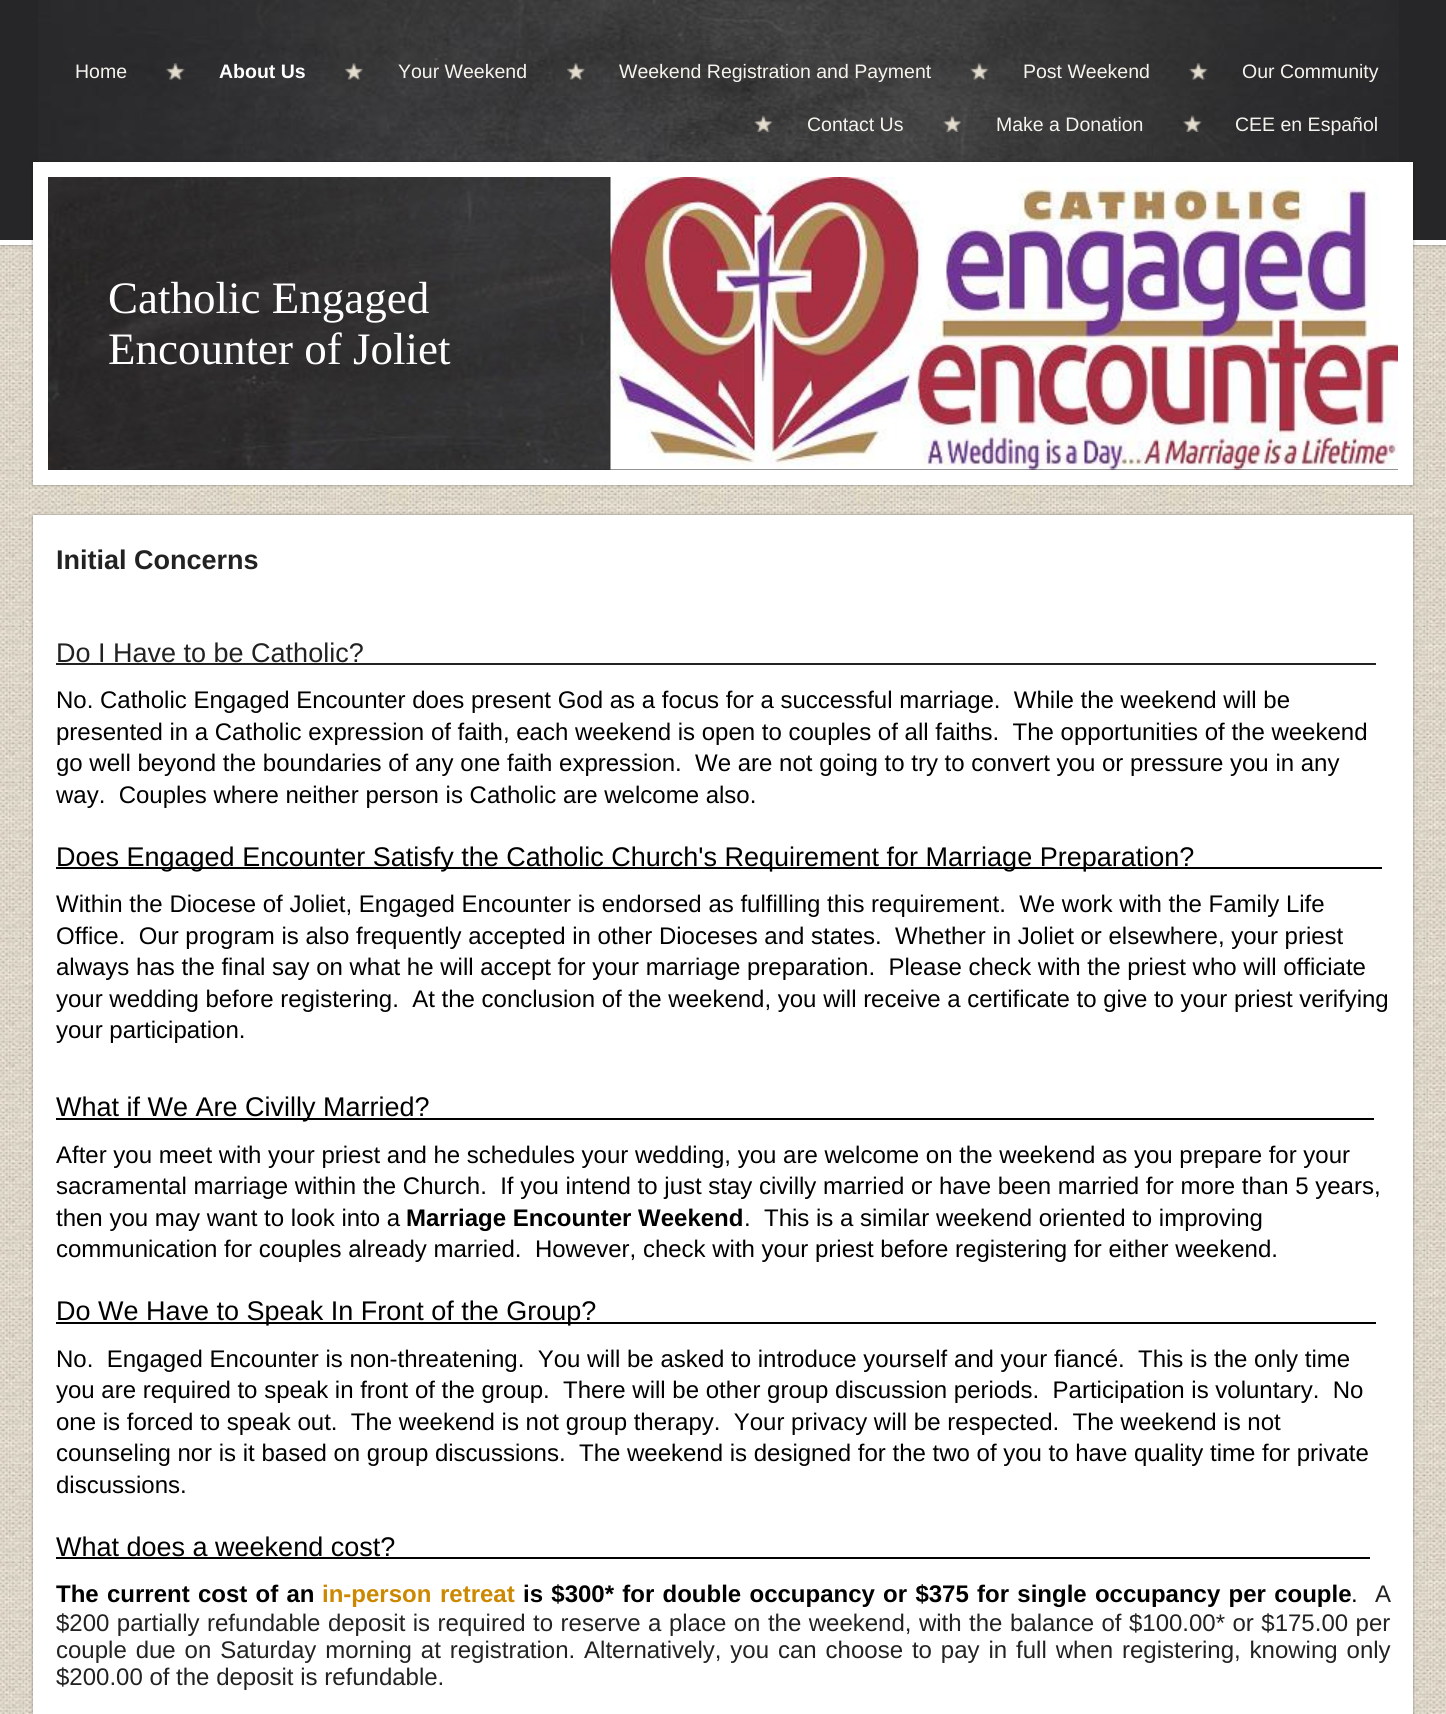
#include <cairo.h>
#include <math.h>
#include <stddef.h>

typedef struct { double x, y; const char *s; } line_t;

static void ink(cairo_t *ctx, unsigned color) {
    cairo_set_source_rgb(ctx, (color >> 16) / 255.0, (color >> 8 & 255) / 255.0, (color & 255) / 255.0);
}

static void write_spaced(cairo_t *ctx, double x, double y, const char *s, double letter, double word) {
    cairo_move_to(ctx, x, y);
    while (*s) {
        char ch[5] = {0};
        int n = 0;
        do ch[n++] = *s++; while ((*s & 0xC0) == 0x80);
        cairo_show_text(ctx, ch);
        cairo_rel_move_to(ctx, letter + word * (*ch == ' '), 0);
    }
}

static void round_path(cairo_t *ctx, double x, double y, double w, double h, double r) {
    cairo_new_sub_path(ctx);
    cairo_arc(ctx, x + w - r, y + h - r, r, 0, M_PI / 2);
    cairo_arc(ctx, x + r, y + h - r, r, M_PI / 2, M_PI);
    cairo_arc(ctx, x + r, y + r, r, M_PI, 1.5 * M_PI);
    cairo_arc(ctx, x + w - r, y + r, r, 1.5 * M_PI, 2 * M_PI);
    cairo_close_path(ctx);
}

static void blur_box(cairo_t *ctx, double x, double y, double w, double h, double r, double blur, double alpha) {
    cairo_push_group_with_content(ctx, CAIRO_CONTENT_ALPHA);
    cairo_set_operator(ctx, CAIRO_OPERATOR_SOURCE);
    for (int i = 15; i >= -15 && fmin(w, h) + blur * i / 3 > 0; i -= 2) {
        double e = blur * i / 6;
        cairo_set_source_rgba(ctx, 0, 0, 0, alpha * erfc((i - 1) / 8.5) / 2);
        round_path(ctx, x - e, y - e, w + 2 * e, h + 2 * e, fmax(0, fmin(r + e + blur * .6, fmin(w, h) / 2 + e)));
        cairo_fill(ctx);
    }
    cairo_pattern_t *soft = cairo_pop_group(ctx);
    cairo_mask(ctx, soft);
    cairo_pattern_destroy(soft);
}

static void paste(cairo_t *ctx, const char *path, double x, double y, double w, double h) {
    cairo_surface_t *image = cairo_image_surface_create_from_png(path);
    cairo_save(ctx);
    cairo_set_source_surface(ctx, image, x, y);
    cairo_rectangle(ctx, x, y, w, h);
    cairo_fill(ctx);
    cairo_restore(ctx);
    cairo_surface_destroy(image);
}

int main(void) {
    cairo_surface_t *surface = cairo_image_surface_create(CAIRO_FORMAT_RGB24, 1446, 1714);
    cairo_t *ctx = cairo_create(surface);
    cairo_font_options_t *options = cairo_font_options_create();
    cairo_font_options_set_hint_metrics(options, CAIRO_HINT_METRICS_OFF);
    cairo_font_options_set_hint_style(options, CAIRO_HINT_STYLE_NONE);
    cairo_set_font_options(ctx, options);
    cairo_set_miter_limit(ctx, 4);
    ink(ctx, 0xFFFFFF);
    cairo_paint(ctx);
    paste(ctx, "media/1.png", 0, 245, 1446, 1469);
    ink(ctx, 0x000000);
    blur_box(ctx, 0, 0, 1446, 245, 0, 1.5, 0.45);
    ink(ctx, 0x262628);
    cairo_rectangle(ctx, 0, 0, 1446, 240);
    cairo_fill(ctx);
    paste(ctx, "media/2.png", 38, 0, 1361, 162);
    ink(ctx, 0xFFFFFF);
    cairo_rectangle(ctx, 0, 240, 1446, 5);
    cairo_fill(ctx);
    cairo_select_font_face(ctx, "Liberation Sans", CAIRO_FONT_SLANT_NORMAL, CAIRO_FONT_WEIGHT_NORMAL);
    cairo_set_font_size(ctx, 19.5);
    ink(ctx, 0xF6F4EE);
    cairo_move_to(ctx, 75, 78);
    cairo_show_text(ctx, "Home");
    paste(ctx, "media/3.png", 166, 63, 19, 17);
    cairo_select_font_face(ctx, "Liberation Sans", CAIRO_FONT_SLANT_NORMAL, CAIRO_FONT_WEIGHT_BOLD);
    ink(ctx, 0xFFFFFF);
    cairo_move_to(ctx, 219, 78);
    cairo_show_text(ctx, "About Us");
    paste(ctx, "media/4.png", 345, 63, 18, 17);
    cairo_select_font_face(ctx, "Liberation Sans", CAIRO_FONT_SLANT_NORMAL, CAIRO_FONT_WEIGHT_NORMAL);
    ink(ctx, 0xF6F4EE);
    cairo_move_to(ctx, 398, 78);
    cairo_show_text(ctx, "Your Weekend");
    paste(ctx, "media/5.png", 567, 63, 18, 17);
    cairo_move_to(ctx, 619, 78);
    cairo_show_text(ctx, "Weekend Registration and Payment");
    paste(ctx, "media/6.png", 970, 63, 19, 17);
    cairo_move_to(ctx, 1023, 78);
    cairo_show_text(ctx, "Post Weekend");
    paste(ctx, "media/7.png", 1189, 63, 19, 17);
    cairo_move_to(ctx, 1242, 78);
    cairo_show_text(ctx, "Our Community");
    paste(ctx, "media/8.png", 754, 115, 19, 17);
    cairo_move_to(ctx, 807, 131);
    cairo_show_text(ctx, "Contact Us");
    paste(ctx, "media/9.png", 943, 115, 19, 17);
    cairo_move_to(ctx, 996, 131);
    cairo_show_text(ctx, "Make a Donation");
    paste(ctx, "media/10.png", 1183, 115, 19, 17);
    cairo_move_to(ctx, 1235, 131);
    cairo_show_text(ctx, "CEE en Español");
    ink(ctx, 0x000000);
    blur_box(ctx, 33, 162, 1380, 323, 0, 1.5, 0.35);
    ink(ctx, 0xFFFFFF);
    cairo_rectangle(ctx, 33, 162, 1380, 323);
    cairo_fill(ctx);
    ink(ctx, 0x262628);
    cairo_rectangle(ctx, 48, 469, 1350, 1);
    cairo_fill(ctx);
    paste(ctx, "media/11.png", 48, 177, 561, 293);
    ink(ctx, 0x333333);
    cairo_rectangle(ctx, 609, 177, 2, 293);
    cairo_fill(ctx);
    cairo_select_font_face(ctx, "Liberation Serif", CAIRO_FONT_SLANT_NORMAL, CAIRO_FONT_WEIGHT_NORMAL);
    cairo_set_font_size(ctx, 45);
    ink(ctx, 0xFFFFFF);
    cairo_move_to(ctx, 108, 313);
    cairo_show_text(ctx, "Catholic Engaged");
    cairo_move_to(ctx, 108, 364);
    cairo_show_text(ctx, "Encounter of Joliet");
    paste(ctx, "media/12.png", 610, 177, 788, 293);
    ink(ctx, 0x000000);
    blur_box(ctx, 33, 515, 1380, 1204, 0, 1.5, 0.35);
    ink(ctx, 0xFFFFFF);
    cairo_rectangle(ctx, 33, 515, 1380, 1199);
    cairo_fill(ctx);
    cairo_select_font_face(ctx, "Liberation Sans", CAIRO_FONT_SLANT_NORMAL, CAIRO_FONT_WEIGHT_BOLD);
    cairo_set_font_size(ctx, 27);
    ink(ctx, 0x222222);
    cairo_move_to(ctx, 56, 569);
    cairo_show_text(ctx, "Initial Concerns");
    cairo_select_font_face(ctx, "Liberation Sans", CAIRO_FONT_SLANT_NORMAL, CAIRO_FONT_WEIGHT_NORMAL);
    cairo_move_to(ctx, 56, 662);
    cairo_show_text(ctx, "Do I Have to be Catholic?");
    cairo_rectangle(ctx, 56, 663, 1320, 2);
    cairo_fill(ctx);
    cairo_set_font_size(ctx, 24);
    ink(ctx, 0x000000);
    {
        static const line_t items[] = {
            {56, 708, "No. Catholic Engaged Encounter does present God as a focus for a successful marriage.  While the weekend will be"},
            {56, 740, "presented in a Catholic expression of faith, each weekend is open to couples of all faiths.  The opportunities of the weekend"},
            {56, 771, "go well beyond the boundaries of any one faith expression.  We are not going to try to convert you or pressure you in any"},
            {56, 803, "way.  Couples where neither person is Catholic are welcome also."},
        };
        for (size_t i = 0; i < sizeof items / sizeof *items; i++) {
            cairo_move_to(ctx, items[i].x, items[i].y);
            cairo_show_text(ctx, items[i].s);
        }
    }
    cairo_rectangle(ctx, 56, 867, 1326, 2);
    cairo_fill(ctx);
    cairo_set_font_size(ctx, 27);
    cairo_move_to(ctx, 56, 866);
    cairo_show_text(ctx, "Does Engaged Encounter Satisfy the Catholic Church's Requirement for Marriage Preparation?");
    cairo_set_font_size(ctx, 24);
    {
        static const line_t items[] = {
            {56, 912, "Within the Diocese of Joliet, Engaged Encounter is endorsed as fulfilling this requirement.  We work with the Family Life"},
            {56, 944, "Office.  Our program is also frequently accepted in other Dioceses and states.  Whether in Joliet or elsewhere, your priest"},
            {56, 975, "always has the final say on what he will accept for your marriage preparation.  Please check with the priest who will officiate"},
            {56, 1007, "your wedding before registering.  At the conclusion of the weekend, you will receive a certificate to give to your priest verifying"},
            {56, 1038, "your participation."},
        };
        for (size_t i = 0; i < sizeof items / sizeof *items; i++) {
            cairo_move_to(ctx, items[i].x, items[i].y);
            cairo_show_text(ctx, items[i].s);
        }
    }
    cairo_rectangle(ctx, 56, 1118, 1318, 2);
    cairo_fill(ctx);
    cairo_set_font_size(ctx, 27);
    cairo_move_to(ctx, 56, 1116);
    cairo_show_text(ctx, "What if We Are Civilly Married?");
    cairo_set_font_size(ctx, 24);
    {
        static const line_t items[] = {
            {56, 1163, "After you meet with your priest and he schedules your wedding, you are welcome on the weekend as you prepare for your"},
            {56, 1194, "sacramental marriage within the Church.  If you intend to just stay civilly married or have been married for more than 5 years,"},
            {56, 1226, "then you may want to look into a"},
        };
        for (size_t i = 0; i < sizeof items / sizeof *items; i++) {
            cairo_move_to(ctx, items[i].x, items[i].y);
            cairo_show_text(ctx, items[i].s);
        }
    }
    cairo_select_font_face(ctx, "Liberation Sans", CAIRO_FONT_SLANT_NORMAL, CAIRO_FONT_WEIGHT_BOLD);
    cairo_move_to(ctx, 406, 1226);
    cairo_show_text(ctx, "Marriage Encounter Weekend");
    cairo_select_font_face(ctx, "Liberation Sans", CAIRO_FONT_SLANT_NORMAL, CAIRO_FONT_WEIGHT_NORMAL);
    cairo_move_to(ctx, 744, 1226);
    cairo_show_text(ctx, ".  This is a similar weekend oriented to improving");
    cairo_move_to(ctx, 56, 1257);
    cairo_show_text(ctx, "communication for couples already married.  However, check with your priest before registering for either weekend.");
    cairo_rectangle(ctx, 56, 1322, 1320, 2);
    cairo_fill(ctx);
    cairo_set_font_size(ctx, 27);
    cairo_move_to(ctx, 56, 1320);
    cairo_show_text(ctx, "Do We Have to Speak In Front of the Group?");
    cairo_set_font_size(ctx, 24);
    {
        static const line_t items[] = {
            {56, 1367, "No.  Engaged Encounter is non-threatening.  You will be asked to introduce yourself and your fiancé.  This is the only time"},
            {56, 1398, "you are required to speak in front of the group.  There will be other group discussion periods.  Participation is voluntary.  No"},
            {56, 1430, "one is forced to speak out.  The weekend is not group therapy.  Your privacy will be respected.  The weekend is not"},
            {56, 1461, "counseling nor is it based on group discussions.  The weekend is designed for the two of you to have quality time for private"},
            {56, 1493, "discussions."},
        };
        for (size_t i = 0; i < sizeof items / sizeof *items; i++) {
            cairo_move_to(ctx, items[i].x, items[i].y);
            cairo_show_text(ctx, items[i].s);
        }
    }
    cairo_set_font_size(ctx, 27);
    cairo_move_to(ctx, 56, 1556);
    cairo_show_text(ctx, "What does a weekend cost?");
    cairo_rectangle(ctx, 56, 1557, 1314, 2);
    cairo_fill(ctx);
    cairo_select_font_face(ctx, "Liberation Sans", CAIRO_FONT_SLANT_NORMAL, CAIRO_FONT_WEIGHT_BOLD);
    cairo_set_font_size(ctx, 24);
    write_spaced(ctx, 56, 1602, "The current cost of an", 0, 1.6);
    ink(ctx, 0xCC8800);
    write_spaced(ctx, 322, 1602, "in-person retreat", 0, 2);
    ink(ctx, 0x000000);
    write_spaced(ctx, 523, 1602, "is $300* for double occupancy or $375 for single occupancy per couple", 0, 1.6);
    cairo_select_font_face(ctx, "Liberation Sans", CAIRO_FONT_SLANT_NORMAL, CAIRO_FONT_WEIGHT_NORMAL);
    cairo_move_to(ctx, 1351, 1602);
    cairo_show_text(ctx, ".");
    ink(ctx, 0x222222);
    cairo_move_to(ctx, 1375, 1602);
    cairo_show_text(ctx, "A");
    write_spaced(ctx, 56, 1631, "$200 partially refundable deposit is required to reserve a place on the weekend, with the balance of $100.00* or $175.00 per", 0, 0.8);
    write_spaced(ctx, 56, 1658, "couple due on Saturday morning at registration. Alternatively, you can choose to pay in full when registering, knowing only", 0, 2.25);
    cairo_move_to(ctx, 56, 1685);
    cairo_show_text(ctx, "$200.00 of the deposit is refundable.");
    cairo_surface_write_to_png(surface, "image.png");
    cairo_font_options_destroy(options);
    cairo_destroy(ctx);
    cairo_surface_destroy(surface);
    return 0;
}
